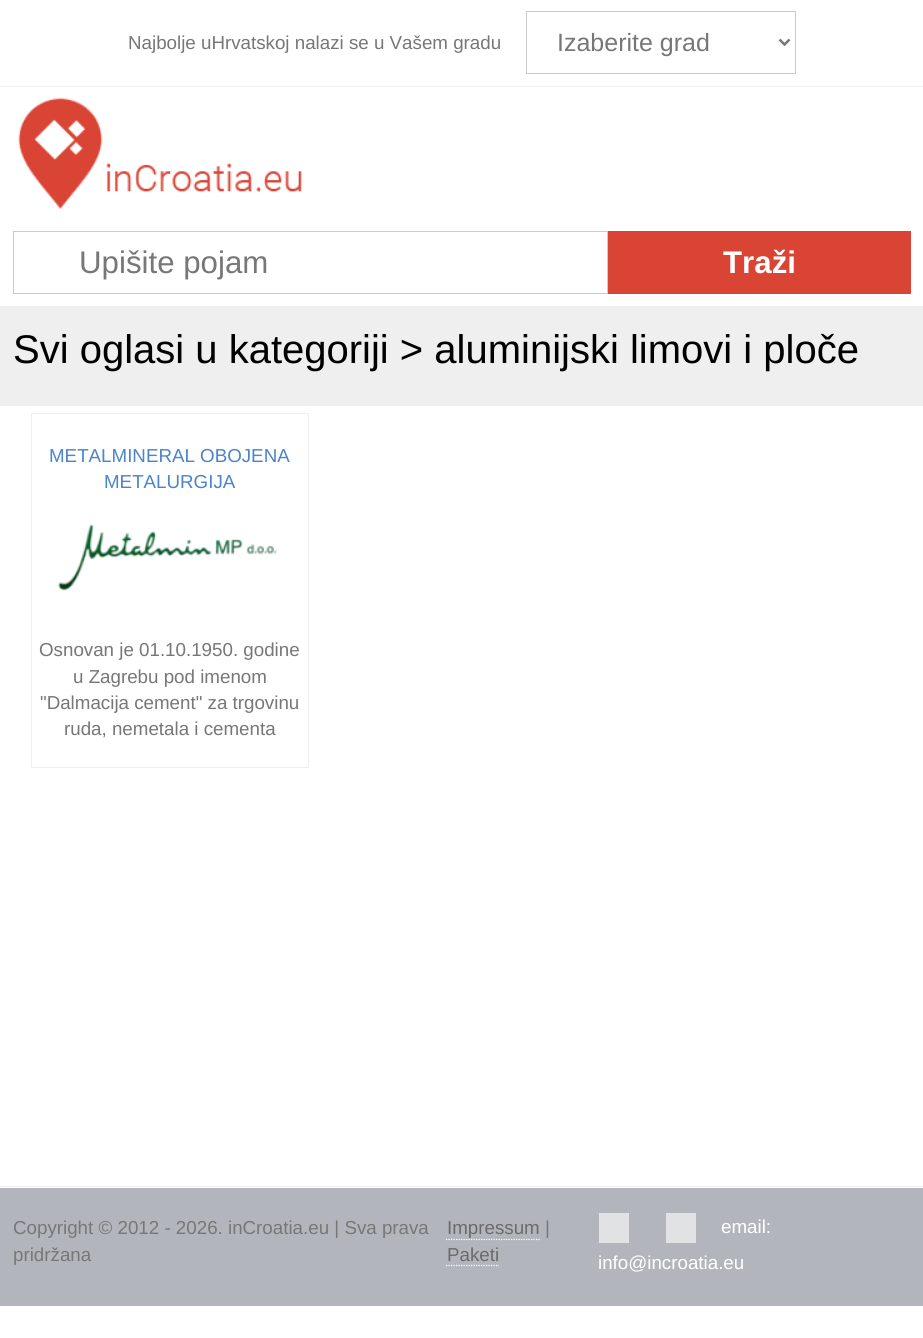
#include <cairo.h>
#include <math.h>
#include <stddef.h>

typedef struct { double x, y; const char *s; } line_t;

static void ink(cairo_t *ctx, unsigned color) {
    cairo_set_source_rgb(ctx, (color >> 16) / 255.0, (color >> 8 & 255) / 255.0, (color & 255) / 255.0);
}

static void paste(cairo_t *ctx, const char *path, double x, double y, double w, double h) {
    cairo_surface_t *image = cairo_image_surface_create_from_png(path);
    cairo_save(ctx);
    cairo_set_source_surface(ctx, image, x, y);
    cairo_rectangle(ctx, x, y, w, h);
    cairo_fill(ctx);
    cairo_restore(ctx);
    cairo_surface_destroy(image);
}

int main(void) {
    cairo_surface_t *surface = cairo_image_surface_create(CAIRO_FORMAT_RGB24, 923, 1338);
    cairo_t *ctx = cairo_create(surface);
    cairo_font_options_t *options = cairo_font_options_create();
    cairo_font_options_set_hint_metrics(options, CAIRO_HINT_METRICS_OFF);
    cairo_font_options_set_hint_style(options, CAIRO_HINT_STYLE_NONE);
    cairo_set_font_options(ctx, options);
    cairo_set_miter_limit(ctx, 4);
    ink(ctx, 0xFFFFFF);
    cairo_paint(ctx);
    ink(ctx, 0xEFEFEF);
    cairo_rectangle(ctx, 0, 86, 923, 1);
    cairo_fill(ctx);
    cairo_select_font_face(ctx, "Arimo", CAIRO_FONT_SLANT_NORMAL, CAIRO_FONT_WEIGHT_NORMAL);
    cairo_set_font_size(ctx, 18.75);
    ink(ctx, 0x777777);
    cairo_move_to(ctx, 128, 49);
    cairo_show_text(ctx, "Najbolje uHrvatskoj nalazi se u Vašem gradu");
    cairo_rectangle(ctx, 526.5, 11.5, 269, 62);
    ink(ctx, 0xCCCCCC);
    cairo_set_line_width(ctx, 1);
    cairo_stroke(ctx);
    cairo_new_path(ctx);
    cairo_move_to(ctx, 779.5, 39.5);
    cairo_line_to(ctx, 784.5, 44.5);
    cairo_line_to(ctx, 789.5, 39.5);
    ink(ctx, 0x777777);
    cairo_set_line_width(ctx, 2.5);
    cairo_stroke(ctx);
    cairo_select_font_face(ctx, "Liberation Sans", CAIRO_FONT_SLANT_NORMAL, CAIRO_FONT_WEIGHT_NORMAL);
    cairo_set_font_size(ctx, 25);
    cairo_move_to(ctx, 557, 51);
    cairo_show_text(ctx, "Izaberite grad");
    paste(ctx, "media/1.png", 18, 97, 284, 112);
    cairo_rectangle(ctx, 13.5, 231.5, 594, 62);
    ink(ctx, 0xCCCCCC);
    cairo_set_line_width(ctx, 1);
    cairo_stroke(ctx);
    cairo_set_font_size(ctx, 31.25);
    ink(ctx, 0x777777);
    cairo_move_to(ctx, 79, 273);
    cairo_show_text(ctx, "Upišite pojam");
    ink(ctx, 0xDA4435);
    cairo_rectangle(ctx, 608, 231, 303, 63);
    cairo_fill(ctx);
    cairo_select_font_face(ctx, "Liberation Sans", CAIRO_FONT_SLANT_NORMAL, CAIRO_FONT_WEIGHT_BOLD);
    ink(ctx, 0xFFFFFF);
    cairo_move_to(ctx, 723, 273);
    cairo_show_text(ctx, "Traži");
    ink(ctx, 0xEFEFEF);
    cairo_rectangle(ctx, 0, 306, 923, 100);
    cairo_fill(ctx);
    cairo_select_font_face(ctx, "Arimo", CAIRO_FONT_SLANT_NORMAL, CAIRO_FONT_WEIGHT_NORMAL);
    cairo_set_font_size(ctx, 40);
    ink(ctx, 0x000000);
    cairo_move_to(ctx, 13, 363);
    cairo_show_text(ctx, "Svi oglasi u kategoriji > aluminijski limovi i ploče");
    cairo_rectangle(ctx, 31.5, 413.5, 277, 354);
    ink(ctx, 0xEFEFEF);
    cairo_stroke(ctx);
    cairo_set_font_size(ctx, 18.75);
    ink(ctx, 0x4B84C9);
    cairo_move_to(ctx, 49, 462);
    cairo_show_text(ctx, "METALMINERAL OBOJENA");
    cairo_move_to(ctx, 104, 488);
    cairo_show_text(ctx, "METALURGIJA");
    paste(ctx, "media/2.png", 58, 524, 219, 67);
    ink(ctx, 0x777777);
    {
        static const line_t items[] = {
            {39, 656, "Osnovan je 01.10.1950. godine"},
            {73, 683, "u Zagrebu pod imenom"},
            {40, 709, "\"Dalmacija cement\" za trgovinu"},
            {64, 735, "ruda, nemetala i cementa"},
        };
        for (size_t i = 0; i < sizeof items / sizeof *items; i++) {
            cairo_move_to(ctx, items[i].x, items[i].y);
            cairo_show_text(ctx, items[i].s);
        }
    }
    ink(ctx, 0xEFEFEF);
    cairo_rectangle(ctx, 0, 1186, 923, 1);
    cairo_fill(ctx);
    ink(ctx, 0xB2B6BC);
    cairo_rectangle(ctx, 0, 1188, 923, 118);
    cairo_fill(ctx);
    ink(ctx, 0x777777);
    cairo_move_to(ctx, 13, 1234);
    cairo_show_text(ctx, "Copyright © 2012 - 2026. inCroatia.eu | Sva prava");
    cairo_move_to(ctx, 13, 1261);
    cairo_show_text(ctx, "pridržana");
    ink(ctx, 0x6A6A6A);
    cairo_move_to(ctx, 447, 1234);
    cairo_show_text(ctx, "Impressum");
    cairo_new_path(ctx);
    cairo_move_to(ctx, 446, 1239.5);
    cairo_line_to(ctx, 540, 1239.5);
    ink(ctx, 0xFFFFFF);
    cairo_set_line_width(ctx, 1.2);
    cairo_set_dash(ctx, (double[]){1.25, 1.25}, 2, 0);
    cairo_stroke(ctx);
    ink(ctx, 0x777777);
    cairo_move_to(ctx, 545, 1234);
    cairo_show_text(ctx, "|");
    ink(ctx, 0x6A6A6A);
    cairo_move_to(ctx, 447, 1261);
    cairo_show_text(ctx, "Paketi");
    cairo_new_path(ctx);
    cairo_move_to(ctx, 446, 1265.5);
    cairo_line_to(ctx, 499, 1265.5);
    ink(ctx, 0xFFFFFF);
    cairo_stroke(ctx);
    ink(ctx, 0xE0E2E4);
    cairo_rectangle(ctx, 599, 1213, 30, 30);
    cairo_fill(ctx);
    cairo_rectangle(ctx, 666, 1213, 30, 30);
    cairo_fill(ctx);
    ink(ctx, 0xFFFFFF);
    cairo_move_to(ctx, 721, 1233);
    cairo_show_text(ctx, "email:");
    cairo_move_to(ctx, 598, 1269);
    cairo_show_text(ctx, "info@incroatia.eu");
    cairo_surface_write_to_png(surface, "image.png");
    cairo_font_options_destroy(options);
    cairo_destroy(ctx);
    cairo_surface_destroy(surface);
    return 0;
}
